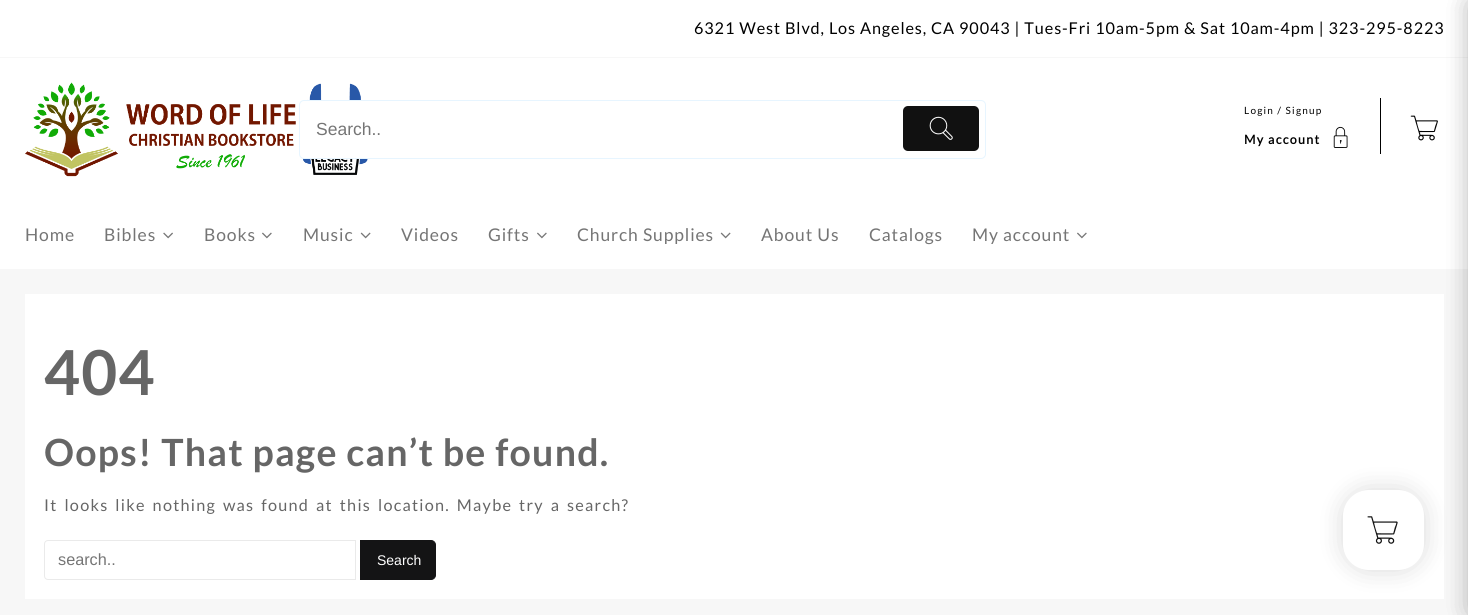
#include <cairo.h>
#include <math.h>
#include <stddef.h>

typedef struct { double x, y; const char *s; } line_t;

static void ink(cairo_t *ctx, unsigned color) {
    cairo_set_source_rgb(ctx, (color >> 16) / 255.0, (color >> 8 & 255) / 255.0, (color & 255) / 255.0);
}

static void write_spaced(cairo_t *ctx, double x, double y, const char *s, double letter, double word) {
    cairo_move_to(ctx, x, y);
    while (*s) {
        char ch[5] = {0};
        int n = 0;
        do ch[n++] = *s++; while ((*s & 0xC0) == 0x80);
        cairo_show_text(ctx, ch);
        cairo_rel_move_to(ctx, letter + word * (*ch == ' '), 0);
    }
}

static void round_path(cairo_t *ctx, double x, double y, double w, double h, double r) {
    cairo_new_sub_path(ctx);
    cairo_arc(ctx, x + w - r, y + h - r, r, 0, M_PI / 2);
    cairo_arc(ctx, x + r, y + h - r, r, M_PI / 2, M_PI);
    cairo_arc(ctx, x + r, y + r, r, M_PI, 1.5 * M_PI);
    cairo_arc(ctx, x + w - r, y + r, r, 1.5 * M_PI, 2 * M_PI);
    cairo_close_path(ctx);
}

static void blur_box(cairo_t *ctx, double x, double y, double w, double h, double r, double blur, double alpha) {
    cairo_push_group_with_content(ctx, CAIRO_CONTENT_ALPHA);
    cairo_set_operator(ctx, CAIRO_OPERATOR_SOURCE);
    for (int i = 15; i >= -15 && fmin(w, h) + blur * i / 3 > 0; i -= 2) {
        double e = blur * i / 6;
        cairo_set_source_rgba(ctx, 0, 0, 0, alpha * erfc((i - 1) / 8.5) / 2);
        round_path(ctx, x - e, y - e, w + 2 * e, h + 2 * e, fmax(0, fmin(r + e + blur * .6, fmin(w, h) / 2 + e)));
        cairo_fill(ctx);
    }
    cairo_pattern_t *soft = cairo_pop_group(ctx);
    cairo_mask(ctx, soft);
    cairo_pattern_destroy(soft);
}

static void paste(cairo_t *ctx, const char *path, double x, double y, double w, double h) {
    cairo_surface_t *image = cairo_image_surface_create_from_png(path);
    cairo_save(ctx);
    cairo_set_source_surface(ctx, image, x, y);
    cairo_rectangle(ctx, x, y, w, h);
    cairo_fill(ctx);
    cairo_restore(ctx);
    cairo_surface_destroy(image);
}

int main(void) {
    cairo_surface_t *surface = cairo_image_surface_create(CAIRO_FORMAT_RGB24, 1468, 615);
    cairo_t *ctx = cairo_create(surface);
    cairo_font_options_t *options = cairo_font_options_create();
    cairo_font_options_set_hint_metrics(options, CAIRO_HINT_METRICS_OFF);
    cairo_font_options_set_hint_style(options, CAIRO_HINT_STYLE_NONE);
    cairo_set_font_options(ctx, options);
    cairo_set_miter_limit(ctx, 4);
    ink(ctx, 0xF7F7F7);
    cairo_paint(ctx);
    ink(ctx, 0xFFFFFF);
    cairo_rectangle(ctx, 0, 0, 1468, 57);
    cairo_fill(ctx);
    cairo_rectangle(ctx, 0, 58, 1468, 211);
    cairo_fill(ctx);
    paste(ctx, "media/4.png", 1410, 115, 28, 26);
    cairo_rectangle(ctx, 25, 294, 1419, 305);
    cairo_fill(ctx);
    ink(ctx, 0x000000);
    blur_box(ctx, 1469, 0, 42, 615, 5, 12.5, 0.15);
    blur_box(ctx, 1343, 490, 81, 80, 25, 12.5, 0.15);
    ink(ctx, 0xFFFFFF);
    round_path(ctx, 1343, 490, 81, 80, 26);
    cairo_fill(ctx);
    paste(ctx, "media/1.png", 1367, 516, 31, 28);
    cairo_select_font_face(ctx, "Lato", CAIRO_FONT_SLANT_NORMAL, CAIRO_FONT_WEIGHT_NORMAL);
    cairo_set_font_size(ctx, 16.25);
    ink(ctx, 0x000000);
    write_spaced(ctx, 694, 34, "6321 West Blvd, Los Angeles, CA 90043 | Tues-Fri 10am-5pm & Sat 10am-4pm | 323-295-8223", 0.88, 0);
    paste(ctx, "media/2.png", 25, 82, 343, 95);
    cairo_set_font_size(ctx, 10);
    write_spaced(ctx, 1244, 114, "Login / Signup", 1.25, 0);
    cairo_rectangle(ctx, 1380, 98, 1, 56);
    cairo_fill(ctx);
    cairo_select_font_face(ctx, "Lato", CAIRO_FONT_SLANT_NORMAL, CAIRO_FONT_WEIGHT_BOLD);
    cairo_set_font_size(ctx, 12.5);
    write_spaced(ctx, 1244, 144, "My account", 1.25, 0);
    paste(ctx, "media/3.png", 1333, 126, 15, 22);
    ink(ctx, 0x000000);
    blur_box(ctx, 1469, 0, 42, 615, 5, 12.5, 0.15);
    ink(ctx, 0xFFFFFF);
    round_path(ctx, 299.5, 100.5, 686, 58, 4.5);
    cairo_fill_preserve(ctx);
    ink(ctx, 0xE7F5FF);
    cairo_set_line_width(ctx, 1);
    cairo_stroke(ctx);
    cairo_select_font_face(ctx, "Liberation Sans", CAIRO_FONT_SLANT_NORMAL, CAIRO_FONT_WEIGHT_NORMAL);
    cairo_set_font_size(ctx, 17.5);
    ink(ctx, 0x757575);
    cairo_move_to(ctx, 316, 135);
    cairo_show_text(ctx, "Search..");
    ink(ctx, 0x111111);
    round_path(ctx, 903, 106, 76, 45, 5);
    cairo_fill(ctx);
    paste(ctx, "media/5.png", 929, 116, 24, 24);
    cairo_select_font_face(ctx, "Lato", CAIRO_FONT_SLANT_NORMAL, CAIRO_FONT_WEIGHT_NORMAL);
    ink(ctx, 0x757575);
    write_spaced(ctx, 25, 241, "Home", 0.88, 0);
    write_spaced(ctx, 104, 241, "Bibles", 0.88, 0);
    paste(ctx, "media/6.png", 163, 232, 10, 7);
    write_spaced(ctx, 204, 241, "Books", 0.88, 0);
    paste(ctx, "media/7.png", 262, 232, 10, 7);
    write_spaced(ctx, 303, 241, "Music", 0.88, 0);
    paste(ctx, "media/8.png", 360, 232, 11, 7);
    write_spaced(ctx, 401, 241, "Videos", 0.88, 0);
    write_spaced(ctx, 488, 241, "Gifts", 0.88, 0);
    paste(ctx, "media/7.png", 537, 232, 10, 7);
    write_spaced(ctx, 577, 241, "Church Supplies", 0.88, 0);
    paste(ctx, "media/8.png", 720, 232, 11, 7);
    {
        static const line_t items[] = {
            {761, 241, "About Us"},
            {869, 241, "Catalogs"},
            {972, 241, "My account"},
        };
        for (size_t i = 0; i < sizeof items / sizeof *items; i++) {
            write_spaced(ctx, items[i].x, items[i].y, items[i].s, 0.88, 0);
        }
    }
    paste(ctx, "media/7.png", 1077, 232, 10, 7);
    cairo_select_font_face(ctx, "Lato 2", CAIRO_FONT_SLANT_NORMAL, CAIRO_FONT_WEIGHT_BOLD);
    cairo_set_font_size(ctx, 62);
    ink(ctx, 0x666666);
    write_spaced(ctx, 44, 395, "404", 1.25, 0);
    cairo_set_font_size(ctx, 37.5);
    write_spaced(ctx, 44, 466, "Oops! That page can’t be found.", 1.25, 0);
    cairo_select_font_face(ctx, "Lato", CAIRO_FONT_SLANT_NORMAL, CAIRO_FONT_WEIGHT_NORMAL);
    cairo_set_font_size(ctx, 16.25);
    write_spaced(ctx, 44, 511, "It looks like nothing was found at this location. Maybe try a search?", 1.25, 2.5);
    cairo_new_path(ctx);
    cairo_move_to(ctx, 48, 540.5);
    cairo_line_to(ctx, 355.5, 540.5);
    cairo_line_to(ctx, 355.5, 579.5);
    cairo_line_to(ctx, 48, 579.5);
    cairo_curve_to(ctx, 46, 579.5, 44.5, 578, 44.5, 576);
    cairo_line_to(ctx, 44.5, 544);
    cairo_curve_to(ctx, 44.5, 542, 46, 540.5, 48, 540.5);
    cairo_close_path(ctx);
    ink(ctx, 0xEAEAEA);
    cairo_stroke(ctx);
    cairo_select_font_face(ctx, "Liberation Sans", CAIRO_FONT_SLANT_NORMAL, CAIRO_FONT_WEIGHT_NORMAL);
    ink(ctx, 0x757575);
    cairo_move_to(ctx, 58, 565);
    cairo_show_text(ctx, "search..");
    ink(ctx, 0x141415);
    cairo_new_path(ctx);
    cairo_move_to(ctx, 360.5, 540.5);
    cairo_line_to(ctx, 431, 540.5);
    cairo_curve_to(ctx, 433.5, 540.5, 435.5, 542.5, 435.5, 545);
    cairo_line_to(ctx, 435.5, 575);
    cairo_curve_to(ctx, 435.5, 577.5, 433.5, 579.5, 431, 579.5);
    cairo_line_to(ctx, 360.5, 579.5);
    cairo_close_path(ctx);
    cairo_fill_preserve(ctx);
    cairo_stroke(ctx);
    cairo_set_font_size(ctx, 14);
    ink(ctx, 0xFFFFFF);
    cairo_move_to(ctx, 377, 565);
    cairo_show_text(ctx, "Search");
    cairo_surface_write_to_png(surface, "image.png");
    cairo_font_options_destroy(options);
    cairo_destroy(ctx);
    cairo_surface_destroy(surface);
    return 0;
}
